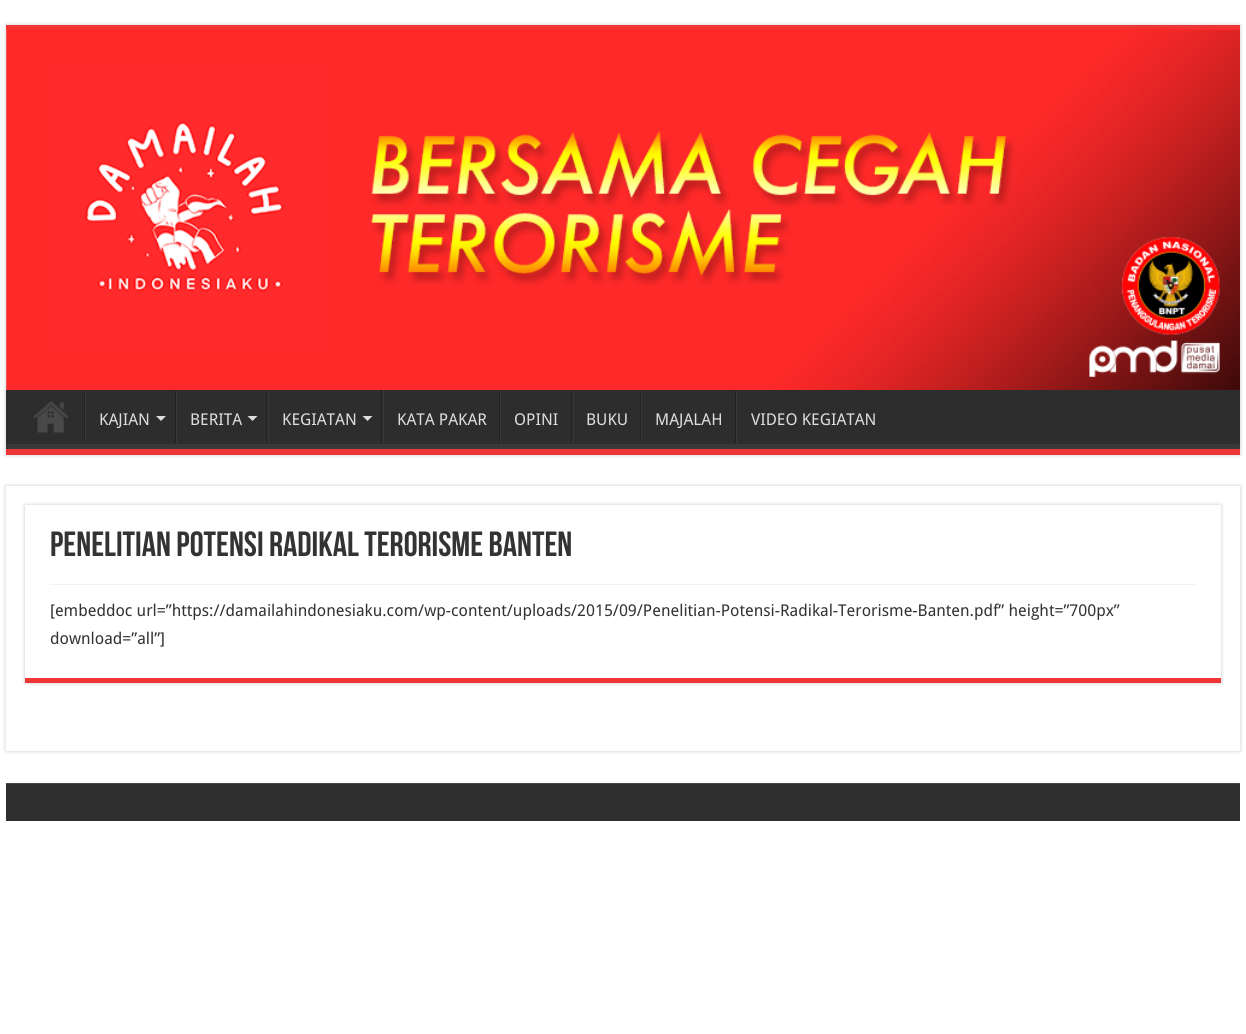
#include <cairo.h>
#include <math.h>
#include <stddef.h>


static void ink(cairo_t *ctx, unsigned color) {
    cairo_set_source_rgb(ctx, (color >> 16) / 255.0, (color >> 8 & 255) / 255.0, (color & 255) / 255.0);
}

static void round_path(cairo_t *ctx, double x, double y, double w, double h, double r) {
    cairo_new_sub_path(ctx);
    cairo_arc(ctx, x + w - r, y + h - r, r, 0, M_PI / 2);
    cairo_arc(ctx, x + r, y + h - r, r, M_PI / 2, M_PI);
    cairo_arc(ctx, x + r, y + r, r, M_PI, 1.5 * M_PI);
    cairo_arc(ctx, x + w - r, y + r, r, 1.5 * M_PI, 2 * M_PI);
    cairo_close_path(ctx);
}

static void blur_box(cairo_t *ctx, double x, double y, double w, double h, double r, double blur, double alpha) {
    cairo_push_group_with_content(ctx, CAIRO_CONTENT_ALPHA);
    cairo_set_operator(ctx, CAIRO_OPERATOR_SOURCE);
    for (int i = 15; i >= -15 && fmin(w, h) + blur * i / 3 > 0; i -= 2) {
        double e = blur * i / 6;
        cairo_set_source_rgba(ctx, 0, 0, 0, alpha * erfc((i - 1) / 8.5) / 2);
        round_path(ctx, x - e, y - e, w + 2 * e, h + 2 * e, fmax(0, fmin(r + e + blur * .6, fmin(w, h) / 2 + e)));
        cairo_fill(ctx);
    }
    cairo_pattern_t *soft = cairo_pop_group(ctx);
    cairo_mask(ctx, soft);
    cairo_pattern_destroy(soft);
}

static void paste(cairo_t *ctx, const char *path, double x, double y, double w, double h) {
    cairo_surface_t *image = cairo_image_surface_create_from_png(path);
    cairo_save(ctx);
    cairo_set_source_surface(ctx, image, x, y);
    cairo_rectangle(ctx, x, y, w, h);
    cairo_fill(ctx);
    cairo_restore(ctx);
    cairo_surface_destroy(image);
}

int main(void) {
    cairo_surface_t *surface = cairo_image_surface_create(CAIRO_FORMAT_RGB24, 1246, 1034);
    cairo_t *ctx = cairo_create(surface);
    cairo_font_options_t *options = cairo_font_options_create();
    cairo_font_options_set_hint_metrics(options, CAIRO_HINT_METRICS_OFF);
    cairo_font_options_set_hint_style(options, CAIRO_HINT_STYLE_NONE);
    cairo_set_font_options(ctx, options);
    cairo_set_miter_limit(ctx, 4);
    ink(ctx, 0xFFFFFF);
    cairo_paint(ctx);
    ink(ctx, 0xCACACA);
    blur_box(ctx, 6, 25, 1234, 430, 0, 2, 1);
    ink(ctx, 0xEF3636);
    cairo_rectangle(ctx, 6, 25, 1234, 4);
    cairo_fill(ctx);
    paste(ctx, "media/1.png", 6, 28, 1234, 362);
    ink(ctx, 0x2D2D2D);
    cairo_rectangle(ctx, 6, 390, 1234, 54);
    cairo_fill(ctx);
    cairo_save(ctx);
    cairo_rectangle(ctx, 6, 390, 1234, 59);
    cairo_clip(ctx);
    ink(ctx, 0x393939);
    cairo_set_fill_rule(ctx, CAIRO_FILL_RULE_EVEN_ODD);
    cairo_new_path(ctx);
    cairo_move_to(ctx, -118, 266);
    cairo_line_to(ctx, 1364, 266);
    cairo_line_to(ctx, 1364, 572);
    cairo_line_to(ctx, -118, 572);
    cairo_close_path(ctx);
    cairo_move_to(ctx, 5, 382);
    cairo_line_to(ctx, 1239, 382);
    cairo_curve_to(ctx, 1239, 382, 1240, 383, 1240, 384);
    cairo_line_to(ctx, 1240, 442);
    cairo_curve_to(ctx, 1240, 443, 1239, 444, 1239, 444);
    cairo_line_to(ctx, 5, 444);
    cairo_curve_to(ctx, 4, 444, 4, 443, 4, 442);
    cairo_line_to(ctx, 4, 384);
    cairo_curve_to(ctx, 4, 383, 4, 382, 5, 382);
    cairo_close_path(ctx);
    cairo_fill(ctx);
    cairo_restore(ctx);
    ink(ctx, 0xEF3636);
    cairo_rectangle(ctx, 6, 449, 1234, 6);
    cairo_fill(ctx);
    paste(ctx, "media/2.png", 33, 401, 36, 32);
    ink(ctx, 0x222222);
    cairo_rectangle(ctx, 84, 390, 1, 53);
    cairo_fill(ctx);
    ink(ctx, 0x383838);
    cairo_rectangle(ctx, 85, 390, 1, 53);
    cairo_fill(ctx);
    cairo_select_font_face(ctx, "Droid Sans", CAIRO_FONT_SLANT_NORMAL, CAIRO_FONT_WEIGHT_NORMAL);
    cairo_set_font_size(ctx, 16.25);
    ink(ctx, 0xDDDDDD);
    cairo_move_to(ctx, 99, 425);
    cairo_show_text(ctx, "KAJIAN");
    cairo_new_path(ctx);
    cairo_move_to(ctx, 156, 416);
    cairo_line_to(ctx, 166, 416);
    cairo_line_to(ctx, 161, 421);
    cairo_close_path(ctx);
    cairo_fill(ctx);
    ink(ctx, 0x222222);
    cairo_rectangle(ctx, 175, 390, 1, 53);
    cairo_fill(ctx);
    ink(ctx, 0x383838);
    cairo_rectangle(ctx, 176, 390, 1, 53);
    cairo_fill(ctx);
    ink(ctx, 0xDDDDDD);
    cairo_move_to(ctx, 190, 425);
    cairo_show_text(ctx, "BERITA");
    cairo_new_path(ctx);
    cairo_move_to(ctx, 247.5, 416);
    cairo_line_to(ctx, 257.5, 416);
    cairo_line_to(ctx, 252.5, 421);
    cairo_close_path(ctx);
    cairo_fill(ctx);
    ink(ctx, 0x222222);
    cairo_rectangle(ctx, 266, 390, 1, 53);
    cairo_fill(ctx);
    ink(ctx, 0x383838);
    cairo_rectangle(ctx, 268, 390, 1, 53);
    cairo_fill(ctx);
    ink(ctx, 0xDDDDDD);
    cairo_move_to(ctx, 282, 425);
    cairo_show_text(ctx, "KEGIATAN");
    cairo_new_path(ctx);
    cairo_move_to(ctx, 362.5, 416);
    cairo_line_to(ctx, 372.5, 416);
    cairo_line_to(ctx, 367.5, 421);
    cairo_close_path(ctx);
    cairo_fill(ctx);
    ink(ctx, 0x222222);
    cairo_rectangle(ctx, 381, 390, 1, 53);
    cairo_fill(ctx);
    ink(ctx, 0x383838);
    cairo_rectangle(ctx, 383, 390, 1, 53);
    cairo_fill(ctx);
    ink(ctx, 0xDDDDDD);
    cairo_move_to(ctx, 397, 425);
    cairo_show_text(ctx, "KATA PAKAR");
    ink(ctx, 0x222222);
    cairo_rectangle(ctx, 499, 390, 1, 53);
    cairo_fill(ctx);
    ink(ctx, 0x383838);
    cairo_rectangle(ctx, 500, 390, 1, 53);
    cairo_fill(ctx);
    ink(ctx, 0xDDDDDD);
    cairo_move_to(ctx, 514, 425);
    cairo_show_text(ctx, "OPINI");
    ink(ctx, 0x222222);
    cairo_rectangle(ctx, 571, 390, 1, 53);
    cairo_fill(ctx);
    ink(ctx, 0x383838);
    cairo_rectangle(ctx, 573, 390, 1, 53);
    cairo_fill(ctx);
    ink(ctx, 0xDDDDDD);
    cairo_move_to(ctx, 586, 425);
    cairo_show_text(ctx, "BUKU");
    ink(ctx, 0x222222);
    cairo_rectangle(ctx, 640, 390, 1, 53);
    cairo_fill(ctx);
    ink(ctx, 0x383838);
    cairo_rectangle(ctx, 641, 390, 1, 53);
    cairo_fill(ctx);
    ink(ctx, 0xDDDDDD);
    cairo_move_to(ctx, 655, 425);
    cairo_show_text(ctx, "MAJALAH");
    ink(ctx, 0x222222);
    cairo_rectangle(ctx, 735, 390, 1, 53);
    cairo_fill(ctx);
    ink(ctx, 0x383838);
    cairo_rectangle(ctx, 736, 390, 1, 53);
    cairo_fill(ctx);
    ink(ctx, 0xDDDDDD);
    cairo_move_to(ctx, 751, 425);
    cairo_show_text(ctx, "VIDEO KEGIATAN");
    ink(ctx, 0xCACACA);
    blur_box(ctx, 6, 486, 1234, 265, 0, 2, 1);
    ink(ctx, 0xFFFFFF);
    cairo_rectangle(ctx, 6, 486, 1234, 265);
    cairo_fill(ctx);
    ink(ctx, 0xCACACA);
    blur_box(ctx, 25, 505, 1196, 178, 0, 2, 1);
    ink(ctx, 0xFFFFFF);
    cairo_rectangle(ctx, 25, 505, 1196, 173);
    cairo_fill(ctx);
    ink(ctx, 0xEF3636);
    cairo_rectangle(ctx, 25, 678, 1196, 5);
    cairo_fill(ctx);
    cairo_select_font_face(ctx, "Bebas Neue", CAIRO_FONT_SLANT_NORMAL, CAIRO_FONT_WEIGHT_BOLD);
    cairo_set_font_size(ctx, 35);
    ink(ctx, 0x333333);
    cairo_move_to(ctx, 50, 556);
    cairo_show_text(ctx, "Penelitian Potensi Radikal Terorisme Banten");
    ink(ctx, 0xF2F2F2);
    cairo_rectangle(ctx, 50, 584, 1146, 1);
    cairo_fill(ctx);
    cairo_select_font_face(ctx, "Droid Sans", CAIRO_FONT_SLANT_NORMAL, CAIRO_FONT_WEIGHT_NORMAL);
    cairo_set_font_size(ctx, 16.25);
    ink(ctx, 0x333333);
    cairo_move_to(ctx, 50, 616);
    cairo_show_text(ctx, "[embeddoc url=”https://damailahindonesiaku.com/wp-content/uploads/2015/09/Penelitian-Potensi-Radikal-Terorisme-Banten.pdf” height=”700px”");
    cairo_move_to(ctx, 50, 644);
    cairo_show_text(ctx, "download=”all”]");
    ink(ctx, 0x2E2E2E);
    cairo_rectangle(ctx, 6, 784, 1234, 37);
    cairo_fill(ctx);
    ink(ctx, 0x444444);
    cairo_rectangle(ctx, 6, 783, 1234, 1);
    cairo_fill(ctx);
    cairo_surface_write_to_png(surface, "image.png");
    cairo_font_options_destroy(options);
    cairo_destroy(ctx);
    cairo_surface_destroy(surface);
    return 0;
}
